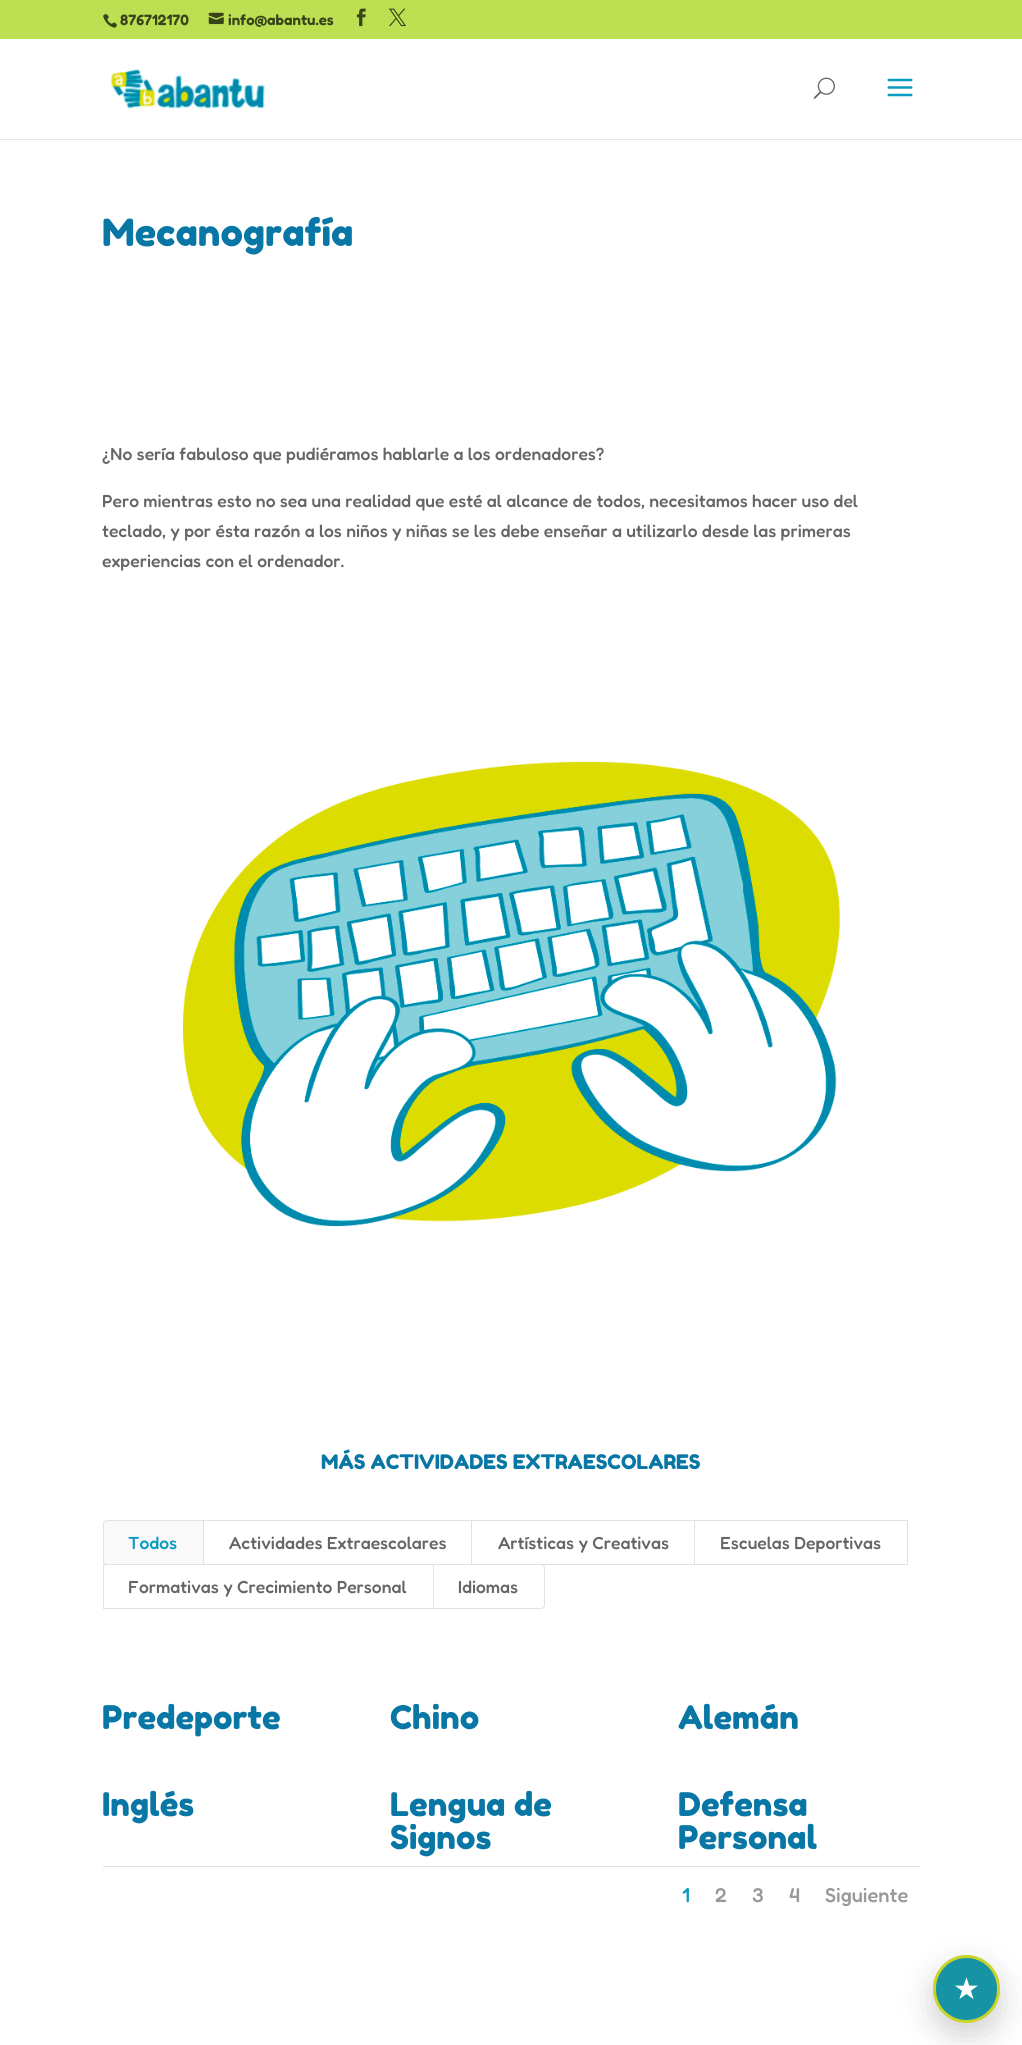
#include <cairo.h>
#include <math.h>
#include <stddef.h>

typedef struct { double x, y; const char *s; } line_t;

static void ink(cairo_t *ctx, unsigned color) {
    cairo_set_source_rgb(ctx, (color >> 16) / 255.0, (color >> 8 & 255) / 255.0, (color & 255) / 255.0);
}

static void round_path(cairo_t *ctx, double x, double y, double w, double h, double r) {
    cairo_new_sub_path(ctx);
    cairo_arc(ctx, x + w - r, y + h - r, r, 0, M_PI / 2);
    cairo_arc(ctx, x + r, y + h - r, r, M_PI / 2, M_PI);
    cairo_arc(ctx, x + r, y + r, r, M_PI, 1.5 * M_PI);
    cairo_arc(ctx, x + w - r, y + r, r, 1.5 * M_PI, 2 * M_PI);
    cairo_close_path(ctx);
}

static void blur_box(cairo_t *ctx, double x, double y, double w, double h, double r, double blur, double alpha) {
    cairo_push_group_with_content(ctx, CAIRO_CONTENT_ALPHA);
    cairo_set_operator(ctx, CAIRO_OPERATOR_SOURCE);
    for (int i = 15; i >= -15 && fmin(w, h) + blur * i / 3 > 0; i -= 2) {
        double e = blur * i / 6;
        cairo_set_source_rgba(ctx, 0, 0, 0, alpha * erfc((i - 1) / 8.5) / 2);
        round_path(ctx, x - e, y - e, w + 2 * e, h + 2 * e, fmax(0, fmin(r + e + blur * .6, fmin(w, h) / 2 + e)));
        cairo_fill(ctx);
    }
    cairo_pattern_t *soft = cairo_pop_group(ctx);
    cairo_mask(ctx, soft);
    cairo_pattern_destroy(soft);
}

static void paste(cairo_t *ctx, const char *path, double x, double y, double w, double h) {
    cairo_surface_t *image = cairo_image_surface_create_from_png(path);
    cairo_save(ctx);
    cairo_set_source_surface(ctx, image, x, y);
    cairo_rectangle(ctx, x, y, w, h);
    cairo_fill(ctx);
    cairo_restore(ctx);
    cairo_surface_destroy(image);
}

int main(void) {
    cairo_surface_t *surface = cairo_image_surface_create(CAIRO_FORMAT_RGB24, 1022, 2045);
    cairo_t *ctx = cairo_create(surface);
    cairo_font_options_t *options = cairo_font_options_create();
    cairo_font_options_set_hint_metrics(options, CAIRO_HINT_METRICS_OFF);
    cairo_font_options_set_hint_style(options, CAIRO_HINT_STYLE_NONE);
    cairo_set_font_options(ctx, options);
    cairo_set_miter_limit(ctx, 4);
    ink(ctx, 0xFFFFFF);
    cairo_paint(ctx);
    ink(ctx, 0xBDE053);
    cairo_rectangle(ctx, 0, 0, 1022, 39);
    cairo_fill(ctx);
    paste(ctx, "media/1.png", 103, 14, 14, 14);
    cairo_select_font_face(ctx, "Fredoka SemiBold", CAIRO_FONT_SLANT_NORMAL, CAIRO_FONT_WEIGHT_NORMAL);
    cairo_set_font_size(ctx, 15);
    ink(ctx, 0x394319);
    cairo_move_to(ctx, 120, 25);
    cairo_show_text(ctx, "876712170");
    paste(ctx, "media/2.png", 208, 12, 16, 13);
    cairo_move_to(ctx, 228, 25);
    cairo_show_text(ctx, "info@abantu.es");
    paste(ctx, "media/3.png", 356, 8, 10, 19);
    paste(ctx, "media/4.png", 389, 8, 17, 19);
    ink(ctx, 0xE6E6E6);
    cairo_new_path(ctx);
    cairo_move_to(ctx, 0, 139);
    cairo_line_to(ctx, 0, 140);
    cairo_line_to(ctx, 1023, 140);
    cairo_line_to(ctx, 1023, 40);
    cairo_line_to(ctx, 1022, 40);
    cairo_line_to(ctx, 1022, 139);
    cairo_close_path(ctx);
    cairo_fill(ctx);
    paste(ctx, "media/5.png", 110, 69, 156, 40);
    paste(ctx, "media/6.png", 813, 77, 22, 22);
    paste(ctx, "media/7.png", 887, 78, 26, 19);
    cairo_select_font_face(ctx, "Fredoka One", CAIRO_FONT_SLANT_NORMAL, CAIRO_FONT_WEIGHT_NORMAL);
    cairo_set_font_size(ctx, 37.5);
    ink(ctx, 0x0977A5);
    cairo_move_to(ctx, 102, 246);
    cairo_show_text(ctx, "Mecanografía");
    cairo_select_font_face(ctx, "Fredoka Medium", CAIRO_FONT_SLANT_NORMAL, CAIRO_FONT_WEIGHT_NORMAL);
    cairo_set_font_size(ctx, 17.5);
    ink(ctx, 0x666666);
    {
        static const line_t items[] = {
            {102, 460, "¿No sería fabuloso que pudiéramos hablarle a los ordenadores?"},
            {102, 507, "Pero mientras esto no sea una realidad que esté al alcance de todos, necesitamos hacer uso del"},
            {102, 537, "teclado, y por ésta razón a los niños y niñas se les debe enseñar a utilizarlo desde las primeras"},
            {102, 567, "experiencias con el ordenador."},
        };
        for (size_t i = 0; i < sizeof items / sizeof *items; i++) {
            cairo_move_to(ctx, items[i].x, items[i].y);
            cairo_show_text(ctx, items[i].s);
        }
    }
    paste(ctx, "media/8.png", 182, 761, 658, 466);
    cairo_select_font_face(ctx, "Fredoka One", CAIRO_FONT_SLANT_NORMAL, CAIRO_FONT_WEIGHT_NORMAL);
    cairo_set_font_size(ctx, 20);
    ink(ctx, 0x0977A5);
    cairo_move_to(ctx, 321, 1469);
    cairo_show_text(ctx, "MÁS ACTIVIDADES EXTRAESCOLARES");
    ink(ctx, 0xF9F9F9);
    cairo_new_path(ctx);
    cairo_move_to(ctx, 107, 1520.5);
    cairo_line_to(ctx, 203.5, 1520.5);
    cairo_line_to(ctx, 203.5, 1564.5);
    cairo_line_to(ctx, 107, 1564.5);
    cairo_curve_to(ctx, 105, 1564.5, 103.5, 1563, 103.5, 1561);
    cairo_line_to(ctx, 103.5, 1524);
    cairo_curve_to(ctx, 103.5, 1522, 105, 1520.5, 107, 1520.5);
    cairo_close_path(ctx);
    cairo_fill_preserve(ctx);
    ink(ctx, 0xE2E2E2);
    cairo_set_line_width(ctx, 1);
    cairo_stroke(ctx);
    cairo_select_font_face(ctx, "Fredoka Medium", CAIRO_FONT_SLANT_NORMAL, CAIRO_FONT_WEIGHT_NORMAL);
    cairo_set_font_size(ctx, 17.5);
    ink(ctx, 0x0B9AC1);
    cairo_move_to(ctx, 128, 1549);
    cairo_show_text(ctx, "Todos");
    cairo_rectangle(ctx, 203.5, 1520.5, 269, 44);
    ink(ctx, 0xE2E2E2);
    cairo_stroke(ctx);
    ink(ctx, 0x666666);
    cairo_move_to(ctx, 229, 1549);
    cairo_show_text(ctx, "Actividades Extraescolares");
    ink(ctx, 0xFFFFFF);
    cairo_rectangle(ctx, 472, 1521, 1, 43);
    cairo_fill(ctx);
    cairo_rectangle(ctx, 471.5, 1520.5, 223, 44);
    ink(ctx, 0xE2E2E2);
    cairo_stroke(ctx);
    ink(ctx, 0x666666);
    cairo_move_to(ctx, 498, 1549);
    cairo_show_text(ctx, "Artísticas y Creativas");
    cairo_rectangle(ctx, 694.5, 1520.5, 213, 44);
    ink(ctx, 0xE2E2E2);
    cairo_stroke(ctx);
    ink(ctx, 0x666666);
    cairo_move_to(ctx, 720, 1549);
    cairo_show_text(ctx, "Escuelas Deportivas");
    cairo_rectangle(ctx, 103.5, 1564.5, 330, 44);
    ink(ctx, 0xE2E2E2);
    cairo_stroke(ctx);
    ink(ctx, 0x666666);
    cairo_move_to(ctx, 128, 1593);
    cairo_show_text(ctx, "Formativas y Crecimiento Personal");
    ink(ctx, 0xFFFFFF);
    cairo_new_path(ctx);
    cairo_move_to(ctx, 433.5, 1564.5);
    cairo_line_to(ctx, 541, 1564.5);
    cairo_curve_to(ctx, 543, 1564.5, 544.5, 1566, 544.5, 1568);
    cairo_line_to(ctx, 544.5, 1605);
    cairo_curve_to(ctx, 544.5, 1607, 543, 1608.5, 541, 1608.5);
    cairo_line_to(ctx, 433.5, 1608.5);
    cairo_close_path(ctx);
    cairo_fill_preserve(ctx);
    ink(ctx, 0xE2E2E2);
    cairo_stroke(ctx);
    ink(ctx, 0x666666);
    cairo_move_to(ctx, 458, 1593);
    cairo_show_text(ctx, "Idiomas");
    cairo_select_font_face(ctx, "Fredoka One", CAIRO_FONT_SLANT_NORMAL, CAIRO_FONT_WEIGHT_NORMAL);
    cairo_set_font_size(ctx, 32.5);
    ink(ctx, 0x0977A5);
    {
        static const line_t items[] = {
            {102, 1729, "Predeporte"},
            {390, 1729, "Chino"},
            {678, 1729, "Alemán"},
            {102, 1816, "Inglés"},
            {390, 1816, "Lengua de"},
            {390, 1849, "Signos"},
            {678, 1816, "Defensa"},
            {678, 1849, "Personal"},
        };
        for (size_t i = 0; i < sizeof items / sizeof *items; i++) {
            cairo_move_to(ctx, items[i].x, items[i].y);
            cairo_show_text(ctx, items[i].s);
        }
    }
    ink(ctx, 0xE2E2E2);
    cairo_rectangle(ctx, 103, 1866, 817, 1);
    cairo_fill(ctx);
    cairo_select_font_face(ctx, "Fredoka Medium", CAIRO_FONT_SLANT_NORMAL, CAIRO_FONT_WEIGHT_NORMAL);
    cairo_set_font_size(ctx, 20);
    ink(ctx, 0x0B9AC1);
    cairo_move_to(ctx, 682, 1902);
    cairo_show_text(ctx, "1");
    ink(ctx, 0x999999);
    {
        static const line_t items[] = {
            {715, 1902, "2"},
            {752, 1902, "3"},
            {789, 1902, "4"},
            {825, 1902, "Siguiente"},
        };
        for (size_t i = 0; i < sizeof items / sizeof *items; i++) {
            cairo_move_to(ctx, items[i].x, items[i].y);
            cairo_show_text(ctx, items[i].s);
        }
    }
    ink(ctx, 0x000000);
    blur_box(ctx, 933, 1968, 67, 67, 33.5, 15.5, 0.18);
    ink(ctx, 0x1693A5);
    round_path(ctx, 934.5, 1956.5, 64, 65, 32);
    cairo_fill_preserve(ctx);
    ink(ctx, 0xC9D329);
    cairo_set_line_width(ctx, 3);
    cairo_stroke(ctx);
    cairo_select_font_face(ctx, "DejaVu Sans", CAIRO_FONT_SLANT_NORMAL, CAIRO_FONT_WEIGHT_NORMAL);
    cairo_set_font_size(ctx, 30);
    ink(ctx, 0xFFFFFF);
    cairo_move_to(ctx, 953, 1999);
    cairo_show_text(ctx, "★");
    cairo_surface_write_to_png(surface, "image.png");
    cairo_font_options_destroy(options);
    cairo_destroy(ctx);
    cairo_surface_destroy(surface);
    return 0;
}
